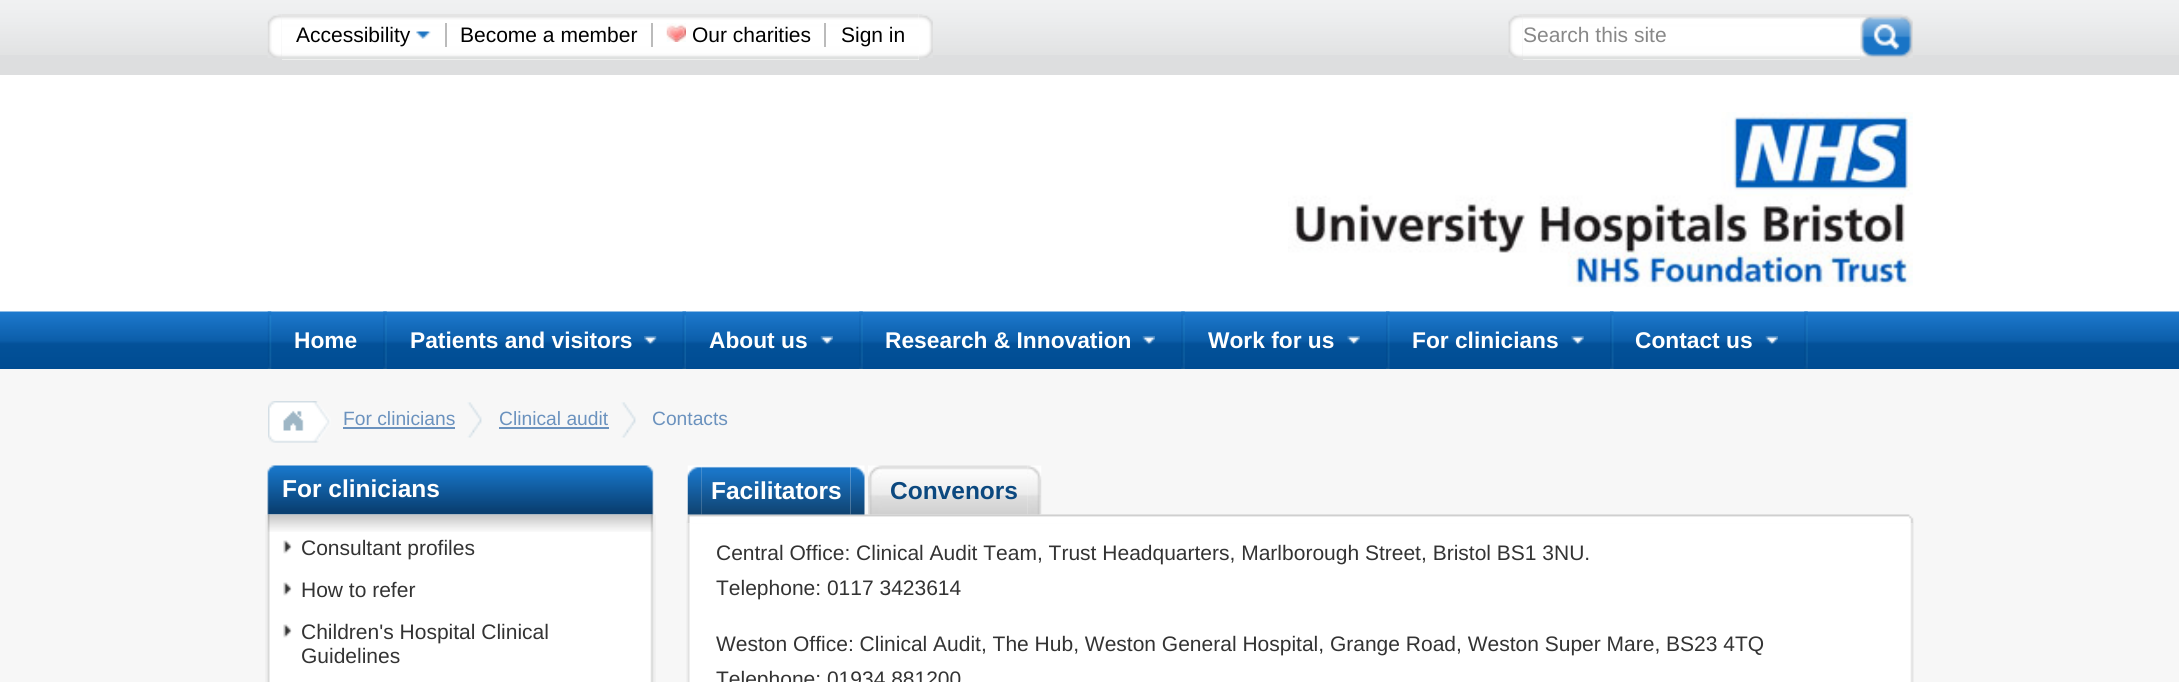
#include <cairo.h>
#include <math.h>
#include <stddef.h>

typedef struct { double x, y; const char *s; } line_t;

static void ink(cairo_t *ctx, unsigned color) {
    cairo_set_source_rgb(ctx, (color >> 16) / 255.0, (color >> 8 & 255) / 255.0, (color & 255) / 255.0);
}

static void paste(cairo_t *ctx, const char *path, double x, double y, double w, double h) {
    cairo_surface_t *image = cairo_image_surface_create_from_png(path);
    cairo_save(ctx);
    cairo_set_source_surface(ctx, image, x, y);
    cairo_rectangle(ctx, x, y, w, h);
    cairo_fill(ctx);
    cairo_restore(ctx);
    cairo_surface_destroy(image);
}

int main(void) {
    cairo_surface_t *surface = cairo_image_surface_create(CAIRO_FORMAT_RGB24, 2179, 682);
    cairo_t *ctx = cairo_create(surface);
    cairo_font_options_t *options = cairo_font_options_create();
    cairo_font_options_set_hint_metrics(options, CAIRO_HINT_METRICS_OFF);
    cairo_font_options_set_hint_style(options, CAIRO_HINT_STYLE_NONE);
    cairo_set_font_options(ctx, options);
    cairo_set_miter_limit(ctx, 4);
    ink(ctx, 0xDDDEDF);
    cairo_paint(ctx);
    paste(ctx, "media/1.png", 0, 0, 2179, 55);
    paste(ctx, "media/2.png", 267, 14, 15, 44);
    ink(ctx, 0xFFFFFF);
    cairo_rectangle(ctx, 282, 14, 637, 46);
    cairo_fill(ctx);
    paste(ctx, "media/3.png", 282, 14, 637, 46);
    ink(ctx, 0xBBBBBB);
    cairo_rectangle(ctx, 445, 23, 2, 24);
    cairo_fill(ctx);
    cairo_select_font_face(ctx, "Liberation Sans", CAIRO_FONT_SLANT_NORMAL, CAIRO_FONT_WEIGHT_NORMAL);
    cairo_set_font_size(ctx, 21);
    ink(ctx, 0x000000);
    cairo_move_to(ctx, 296, 42);
    cairo_show_text(ctx, "Accessibility");
    paste(ctx, "media/4.png", 416, 31, 15, 8);
    ink(ctx, 0xBBBBBB);
    cairo_rectangle(ctx, 651, 23, 2, 24);
    cairo_fill(ctx);
    ink(ctx, 0x000000);
    cairo_move_to(ctx, 460, 42);
    cairo_show_text(ctx, "Become a member");
    ink(ctx, 0xBBBBBB);
    cairo_rectangle(ctx, 824, 23, 2, 24);
    cairo_fill(ctx);
    paste(ctx, "media/5.png", 666, 23, 20, 19);
    ink(ctx, 0x000000);
    cairo_move_to(ctx, 692, 42);
    cairo_show_text(ctx, "Our charities");
    cairo_move_to(ctx, 841, 42);
    cairo_show_text(ctx, "Sign in");
    paste(ctx, "media/6.png", 919, 14, 14, 44);
    ink(ctx, 0xFFFFFF);
    cairo_rectangle(ctx, 1523, 59, 337, 1);
    cairo_fill(ctx);
    paste(ctx, "media/9.png", 1860, 14, 53, 44);
    paste(ctx, "media/8.png", 1522, 14, 339, 46);
    paste(ctx, "media/7.png", 1508, 14, 15, 44);
    cairo_rectangle(ctx, 1523, 19, 337, 1);
    cairo_fill(ctx);
    ink(ctx, 0x888888);
    cairo_move_to(ctx, 1523, 42);
    cairo_show_text(ctx, "Search this site");
    ink(ctx, 0xFFFFFF);
    cairo_rectangle(ctx, 0, 75, 2179, 237);
    cairo_fill(ctx);
    paste(ctx, "media/10.png", 1288, 112, 625, 175);
    paste(ctx, "media/11.png", 0, 311, 2179, 58);
    paste(ctx, "media/12.png", 267, 311, 5, 58);
    cairo_select_font_face(ctx, "Liberation Sans", CAIRO_FONT_SLANT_NORMAL, CAIRO_FONT_WEIGHT_BOLD);
    cairo_set_font_size(ctx, 22.75);
    cairo_move_to(ctx, 294, 348);
    cairo_show_text(ctx, "Home");
    paste(ctx, "media/13.png", 383, 311, 4, 58);
    cairo_move_to(ctx, 410, 348);
    cairo_show_text(ctx, "Patients and visitors");
    paste(ctx, "media/14.png", 644, 336, 13, 9);
    paste(ctx, "media/15.png", 682, 311, 4, 58);
    cairo_move_to(ctx, 709, 348);
    cairo_show_text(ctx, "About us");
    paste(ctx, "media/16.png", 820, 336, 13, 9);
    paste(ctx, "media/17.png", 859, 311, 4, 58);
    cairo_move_to(ctx, 885, 348);
    cairo_show_text(ctx, "Research & Innovation");
    paste(ctx, "media/18.png", 1142, 336, 13, 9);
    paste(ctx, "media/17.png", 1181, 311, 4, 58);
    cairo_move_to(ctx, 1208, 348);
    cairo_show_text(ctx, "Work for us");
    paste(ctx, "media/19.png", 1347, 336, 13, 9);
    paste(ctx, "media/20.png", 1386, 311, 4, 58);
    cairo_move_to(ctx, 1412, 348);
    cairo_show_text(ctx, "For clinicians");
    paste(ctx, "media/19.png", 1571, 336, 13, 9);
    paste(ctx, "media/20.png", 1610, 311, 4, 58);
    cairo_move_to(ctx, 1635, 348);
    cairo_show_text(ctx, "Contact us");
    paste(ctx, "media/18.png", 1765, 336, 13, 9);
    paste(ctx, "media/21.png", 1804, 311, 4, 58);
    ink(ctx, 0xF7F7F7);
    cairo_rectangle(ctx, 0, 369, 2179, 313);
    cairo_fill(ctx);
    paste(ctx, "media/22.png", 268, 401, 63, 42);
    paste(ctx, "media/23.png", 283, 410, 21, 21);
    paste(ctx, "media/24.png", 467, 402, 15, 36);
    cairo_select_font_face(ctx, "Liberation Sans", CAIRO_FONT_SLANT_NORMAL, CAIRO_FONT_WEIGHT_NORMAL);
    cairo_set_font_size(ctx, 19.25);
    ink(ctx, 0x6B92BE);
    cairo_move_to(ctx, 343, 425);
    cairo_show_text(ctx, "For clinicians");
    cairo_rectangle(ctx, 343, 427, 112, 2);
    cairo_fill(ctx);
    paste(ctx, "media/24.png", 621, 402, 15, 36);
    cairo_move_to(ctx, 499, 425);
    cairo_show_text(ctx, "Clinical audit");
    cairo_rectangle(ctx, 499, 427, 110, 2);
    cairo_fill(ctx);
    cairo_move_to(ctx, 652, 425);
    cairo_show_text(ctx, "Contacts");
    paste(ctx, "media/25.png", 267, 465, 387, 50);
    cairo_select_font_face(ctx, "Liberation Sans", CAIRO_FONT_SLANT_NORMAL, CAIRO_FONT_WEIGHT_BOLD);
    cairo_set_font_size(ctx, 24.5);
    ink(ctx, 0xFFFFFF);
    cairo_move_to(ctx, 282, 497);
    cairo_show_text(ctx, "For clinicians");
    paste(ctx, "media/26.png", 265, 514, 391, 168);
    paste(ctx, "media/27.png", 267, 514, 386, 18);
    paste(ctx, "media/28.png", 283, 540, 9, 14);
    cairo_select_font_face(ctx, "Liberation Sans", CAIRO_FONT_SLANT_NORMAL, CAIRO_FONT_WEIGHT_NORMAL);
    cairo_set_font_size(ctx, 21);
    ink(ctx, 0x333333);
    cairo_move_to(ctx, 301, 555);
    cairo_show_text(ctx, "Consultant profiles");
    paste(ctx, "media/28.png", 283, 582, 9, 14);
    cairo_move_to(ctx, 301, 597);
    cairo_show_text(ctx, "How to refer");
    paste(ctx, "media/28.png", 283, 624, 9, 14);
    cairo_move_to(ctx, 301, 639);
    cairo_show_text(ctx, "Children's Hospital Clinical");
    cairo_move_to(ctx, 301, 663);
    cairo_show_text(ctx, "Guidelines");
    paste(ctx, "media/35.png", 686, 514, 1228, 10);
    paste(ctx, "media/29.png", 687, 465, 15, 50);
    paste(ctx, "media/30.png", 701, 465, 150, 50);
    cairo_select_font_face(ctx, "Liberation Sans", CAIRO_FONT_SLANT_NORMAL, CAIRO_FONT_WEIGHT_BOLD);
    cairo_set_font_size(ctx, 24.5);
    ink(ctx, 0xFFFFFF);
    cairo_move_to(ctx, 711, 499);
    cairo_show_text(ctx, "Facilitators");
    paste(ctx, "media/31.png", 850, 465, 15, 50);
    paste(ctx, "media/32.png", 868, 465, 14, 50);
    paste(ctx, "media/33.png", 882, 465, 146, 50);
    ink(ctx, 0x0B487F);
    cairo_move_to(ctx, 890, 499);
    cairo_show_text(ctx, "Convenors");
    paste(ctx, "media/34.png", 1027, 465, 15, 50);
    paste(ctx, "media/36.png", 686, 523, 1228, 159);
    cairo_select_font_face(ctx, "Liberation Sans", CAIRO_FONT_SLANT_NORMAL, CAIRO_FONT_WEIGHT_NORMAL);
    cairo_set_font_size(ctx, 21);
    ink(ctx, 0x333333);
    {
        static const line_t items[] = {
            {716, 560, "Central Office: Clinical Audit Team, Trust Headquarters, Marlborough Street, Bristol BS1 3NU."},
            {716, 595, "Telephone: 0117 3423614"},
            {716, 651, "Weston Office: Clinical Audit, The Hub, Weston General Hospital, Grange Road, Weston Super Mare, BS23 4TQ"},
            {716, 686, "Telephone: 01934 881200"},
        };
        for (size_t i = 0; i < sizeof items / sizeof *items; i++) {
            cairo_move_to(ctx, items[i].x, items[i].y);
            cairo_show_text(ctx, items[i].s);
        }
    }
    cairo_surface_write_to_png(surface, "image.png");
    cairo_font_options_destroy(options);
    cairo_destroy(ctx);
    cairo_surface_destroy(surface);
    return 0;
}
